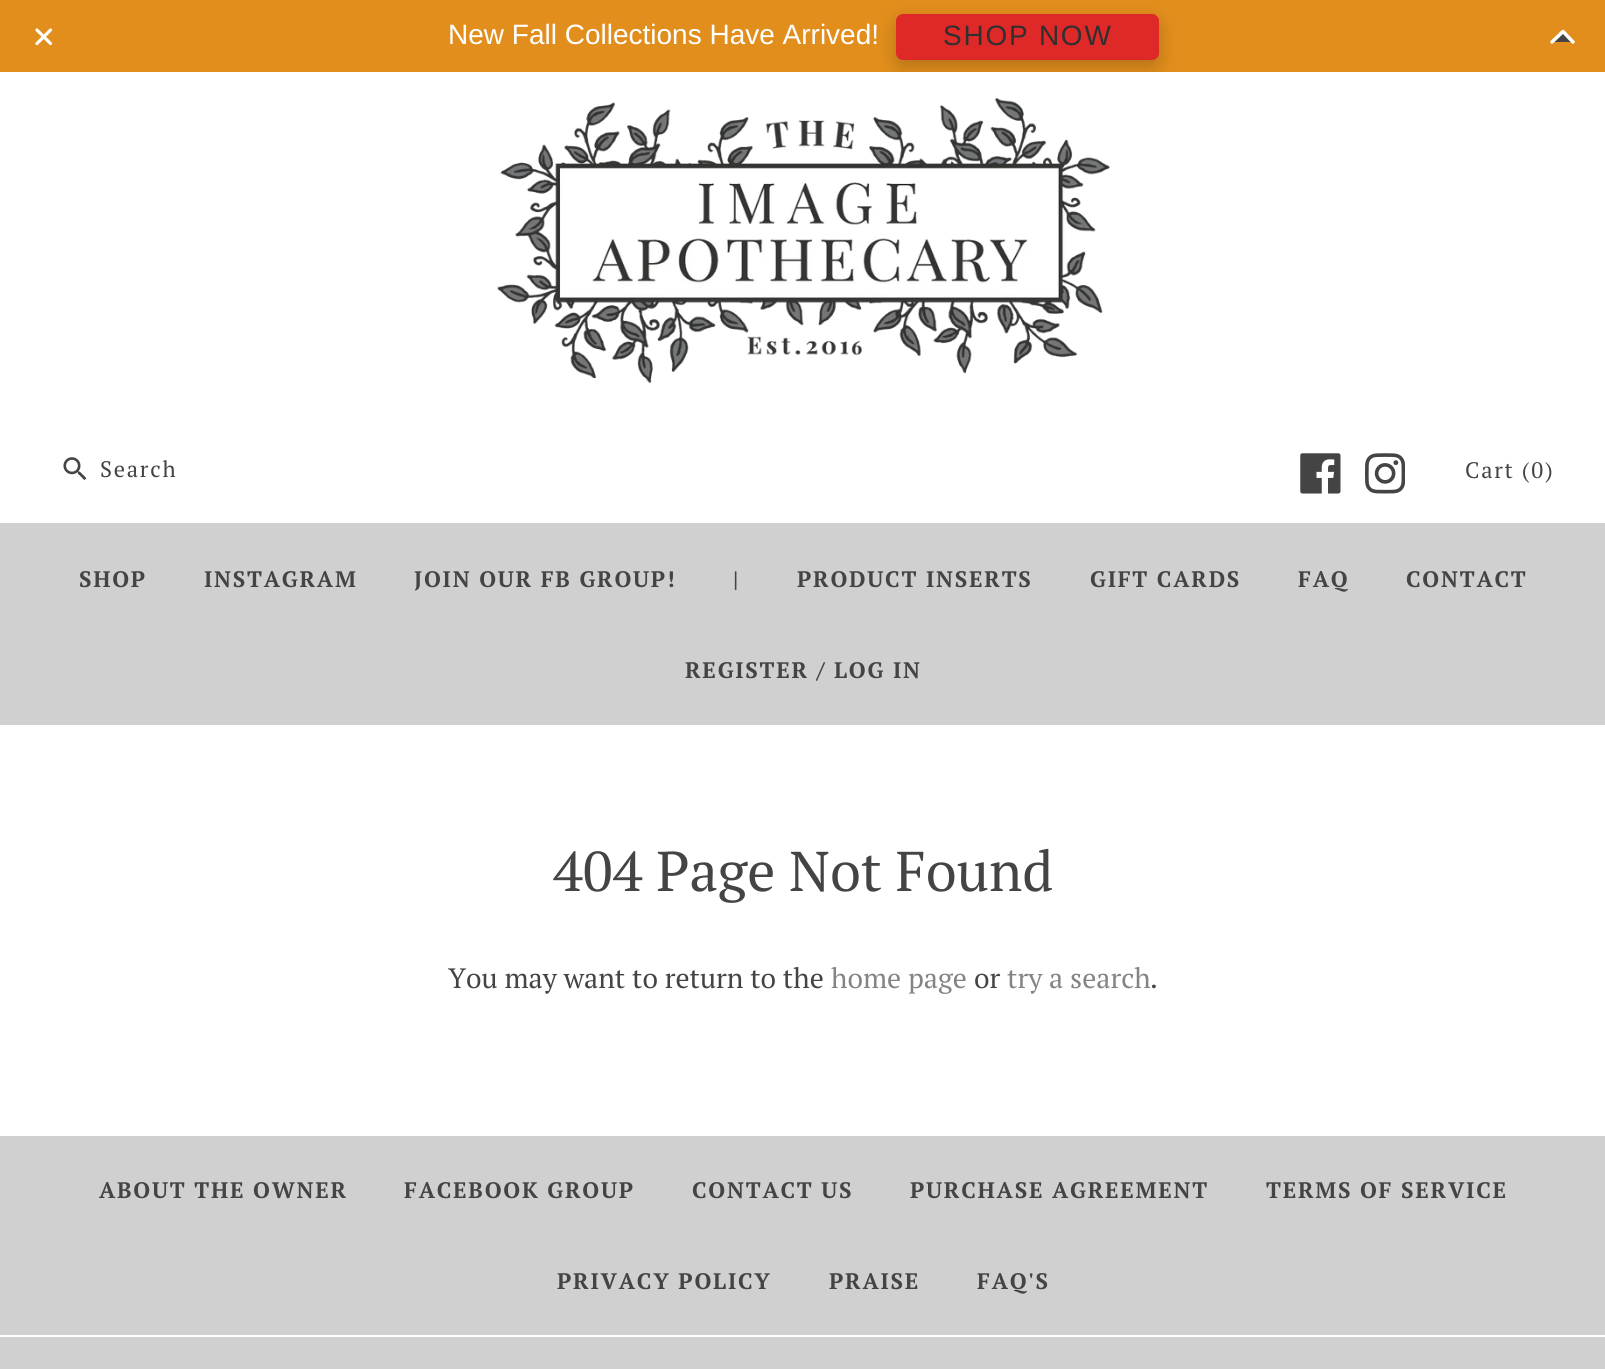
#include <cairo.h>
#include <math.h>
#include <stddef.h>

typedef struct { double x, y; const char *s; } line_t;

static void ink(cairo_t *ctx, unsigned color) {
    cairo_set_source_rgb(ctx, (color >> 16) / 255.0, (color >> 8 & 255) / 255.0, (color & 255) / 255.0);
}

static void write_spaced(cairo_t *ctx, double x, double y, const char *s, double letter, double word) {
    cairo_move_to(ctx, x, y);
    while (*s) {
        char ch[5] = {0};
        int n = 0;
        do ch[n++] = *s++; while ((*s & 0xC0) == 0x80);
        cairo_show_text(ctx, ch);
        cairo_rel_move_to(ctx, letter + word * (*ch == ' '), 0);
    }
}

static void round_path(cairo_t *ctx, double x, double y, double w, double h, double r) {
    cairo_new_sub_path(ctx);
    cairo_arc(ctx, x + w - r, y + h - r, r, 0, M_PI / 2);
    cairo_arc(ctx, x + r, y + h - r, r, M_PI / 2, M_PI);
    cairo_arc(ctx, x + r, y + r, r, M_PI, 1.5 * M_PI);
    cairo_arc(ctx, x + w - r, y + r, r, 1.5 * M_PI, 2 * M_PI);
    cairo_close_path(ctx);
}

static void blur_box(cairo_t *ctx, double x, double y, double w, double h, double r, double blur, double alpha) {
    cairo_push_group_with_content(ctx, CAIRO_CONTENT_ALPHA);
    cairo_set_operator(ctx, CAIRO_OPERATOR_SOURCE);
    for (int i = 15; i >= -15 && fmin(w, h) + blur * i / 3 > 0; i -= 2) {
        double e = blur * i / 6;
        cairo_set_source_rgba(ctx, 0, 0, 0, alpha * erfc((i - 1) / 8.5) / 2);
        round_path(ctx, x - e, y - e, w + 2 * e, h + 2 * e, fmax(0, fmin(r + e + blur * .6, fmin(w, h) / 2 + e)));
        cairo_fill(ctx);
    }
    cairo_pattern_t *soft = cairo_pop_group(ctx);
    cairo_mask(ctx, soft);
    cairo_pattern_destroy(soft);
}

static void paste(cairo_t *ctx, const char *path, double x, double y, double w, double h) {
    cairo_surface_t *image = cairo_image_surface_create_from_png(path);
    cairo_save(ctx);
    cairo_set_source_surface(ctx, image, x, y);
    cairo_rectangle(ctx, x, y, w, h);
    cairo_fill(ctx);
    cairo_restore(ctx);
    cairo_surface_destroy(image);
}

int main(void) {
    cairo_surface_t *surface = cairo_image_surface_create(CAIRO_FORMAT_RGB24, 1605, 1369);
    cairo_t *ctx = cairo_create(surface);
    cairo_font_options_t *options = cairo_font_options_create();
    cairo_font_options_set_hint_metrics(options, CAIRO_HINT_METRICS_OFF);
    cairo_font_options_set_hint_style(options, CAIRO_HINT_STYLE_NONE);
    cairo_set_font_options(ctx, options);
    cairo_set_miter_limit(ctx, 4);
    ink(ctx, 0xFFFFFF);
    cairo_paint(ctx);
    ink(ctx, 0xE18E1C);
    cairo_rectangle(ctx, 0, 0, 1605, 72);
    cairo_fill(ctx);
    paste(ctx, "media/1.png", 35, 28, 18, 18);
    cairo_select_font_face(ctx, "Liberation Sans", CAIRO_FONT_SLANT_NORMAL, CAIRO_FONT_WEIGHT_NORMAL);
    cairo_set_font_size(ctx, 28);
    ink(ctx, 0xFFFFFF);
    cairo_move_to(ctx, 448, 44);
    cairo_show_text(ctx, "New Fall Collections Have Arrived!");
    cairo_save(ctx);
    cairo_rectangle(ctx, 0, 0, 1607, 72);
    cairo_clip(ctx);
    ink(ctx, 0x000000);
    blur_box(ctx, 896, 21, 263, 46, 7, 9, 0.2);
    cairo_restore(ctx);
    ink(ctx, 0xDF2828);
    round_path(ctx, 896, 14, 263, 46, 7);
    cairo_fill(ctx);
    ink(ctx, 0x303030);
    write_spaced(ctx, 943, 45, "SHOP NOW", 1.75, 0);
    ink(ctx, 0x444444);
    cairo_new_path(ctx);
    cairo_move_to(ctx, 1552, 42);
    cairo_line_to(ctx, 1563, 31.5);
    cairo_line_to(ctx, 1573, 42);
    cairo_fill_preserve(ctx);
    ink(ctx, 0xFFFFFF);
    cairo_set_line_width(ctx, 3.5);
    cairo_set_line_cap(ctx, CAIRO_LINE_CAP_ROUND);
    cairo_set_line_join(ctx, CAIRO_LINE_JOIN_ROUND);
    cairo_stroke(ctx);
    paste(ctx, "media/2.png", 497, 98, 613, 286);
    paste(ctx, "media/3.png", 63, 457, 24, 23);
    cairo_select_font_face(ctx, "PT Serif", CAIRO_FONT_SLANT_NORMAL, CAIRO_FONT_WEIGHT_NORMAL);
    cairo_set_font_size(ctx, 22.4);
    ink(ctx, 0x444444);
    write_spaced(ctx, 100, 477, "Search", 1.75, 0);
    paste(ctx, "media/4.png", 1300, 453, 41, 41);
    paste(ctx, "media/5.png", 1365, 453, 40, 41);
    write_spaced(ctx, 1465, 478, "Cart (0)", 1.75, 0);
    ink(ctx, 0xD0D0D0);
    cairo_rectangle(ctx, 0, 523, 1605, 202);
    cairo_fill(ctx);
    cairo_select_font_face(ctx, "PT Serif", CAIRO_FONT_SLANT_NORMAL, CAIRO_FONT_WEIGHT_BOLD);
    ink(ctx, 0x444444);
    {
        static const line_t items[] = {
            {79, 587, "SHOP"},
            {204, 587, "INSTAGRAM"},
            {414, 587, "JOIN OUR FB GROUP!"},
            {733, 587, "|"},
            {797, 587, "PRODUCT INSERTS"},
            {1090, 587, "GIFT CARDS"},
            {1298, 587, "FAQ"},
            {1406, 587, "CONTACT"},
            {685, 678, "REGISTER / LOG IN"},
        };
        for (size_t i = 0; i < sizeof items / sizeof *items; i++) {
            write_spaced(ctx, items[i].x, items[i].y, items[i].s, 1.75, 0);
        }
    }
    cairo_select_font_face(ctx, "PT Serif", CAIRO_FONT_SLANT_NORMAL, CAIRO_FONT_WEIGHT_NORMAL);
    cairo_set_font_size(ctx, 56);
    cairo_move_to(ctx, 553, 891);
    cairo_show_text(ctx, "404 Page Not Found");
    cairo_set_font_size(ctx, 28);
    cairo_move_to(ctx, 448, 988);
    cairo_show_text(ctx, "You may want to return to the");
    ink(ctx, 0x848484);
    cairo_move_to(ctx, 831, 988);
    cairo_show_text(ctx, "home page");
    ink(ctx, 0x444444);
    cairo_move_to(ctx, 974, 988);
    cairo_show_text(ctx, "or");
    ink(ctx, 0x848484);
    cairo_move_to(ctx, 1007, 988);
    cairo_show_text(ctx, "try a search");
    ink(ctx, 0x444444);
    cairo_move_to(ctx, 1150, 988);
    cairo_show_text(ctx, ".");
    ink(ctx, 0xD0D0D0);
    cairo_rectangle(ctx, 0, 1136, 1605, 233);
    cairo_fill(ctx);
    ink(ctx, 0xFFFFFF);
    cairo_rectangle(ctx, 0, 1335, 1605, 2);
    cairo_fill(ctx);
    cairo_select_font_face(ctx, "PT Serif", CAIRO_FONT_SLANT_NORMAL, CAIRO_FONT_WEIGHT_BOLD);
    cairo_set_font_size(ctx, 22.4);
    ink(ctx, 0x444444);
    {
        static const line_t items[] = {
            {99, 1198, "ABOUT THE OWNER"},
            {404, 1198, "FACEBOOK GROUP"},
            {692, 1198, "CONTACT US"},
            {910, 1198, "PURCHASE AGREEMENT"},
            {1266, 1198, "TERMS OF SERVICE"},
            {557, 1289, "PRIVACY POLICY"},
            {829, 1289, "PRAISE"},
            {977, 1289, "FAQ'S"},
        };
        for (size_t i = 0; i < sizeof items / sizeof *items; i++) {
            write_spaced(ctx, items[i].x, items[i].y, items[i].s, 1.75, 0);
        }
    }
    cairo_surface_write_to_png(surface, "image.png");
    cairo_font_options_destroy(options);
    cairo_destroy(ctx);
    cairo_surface_destroy(surface);
    return 0;
}
